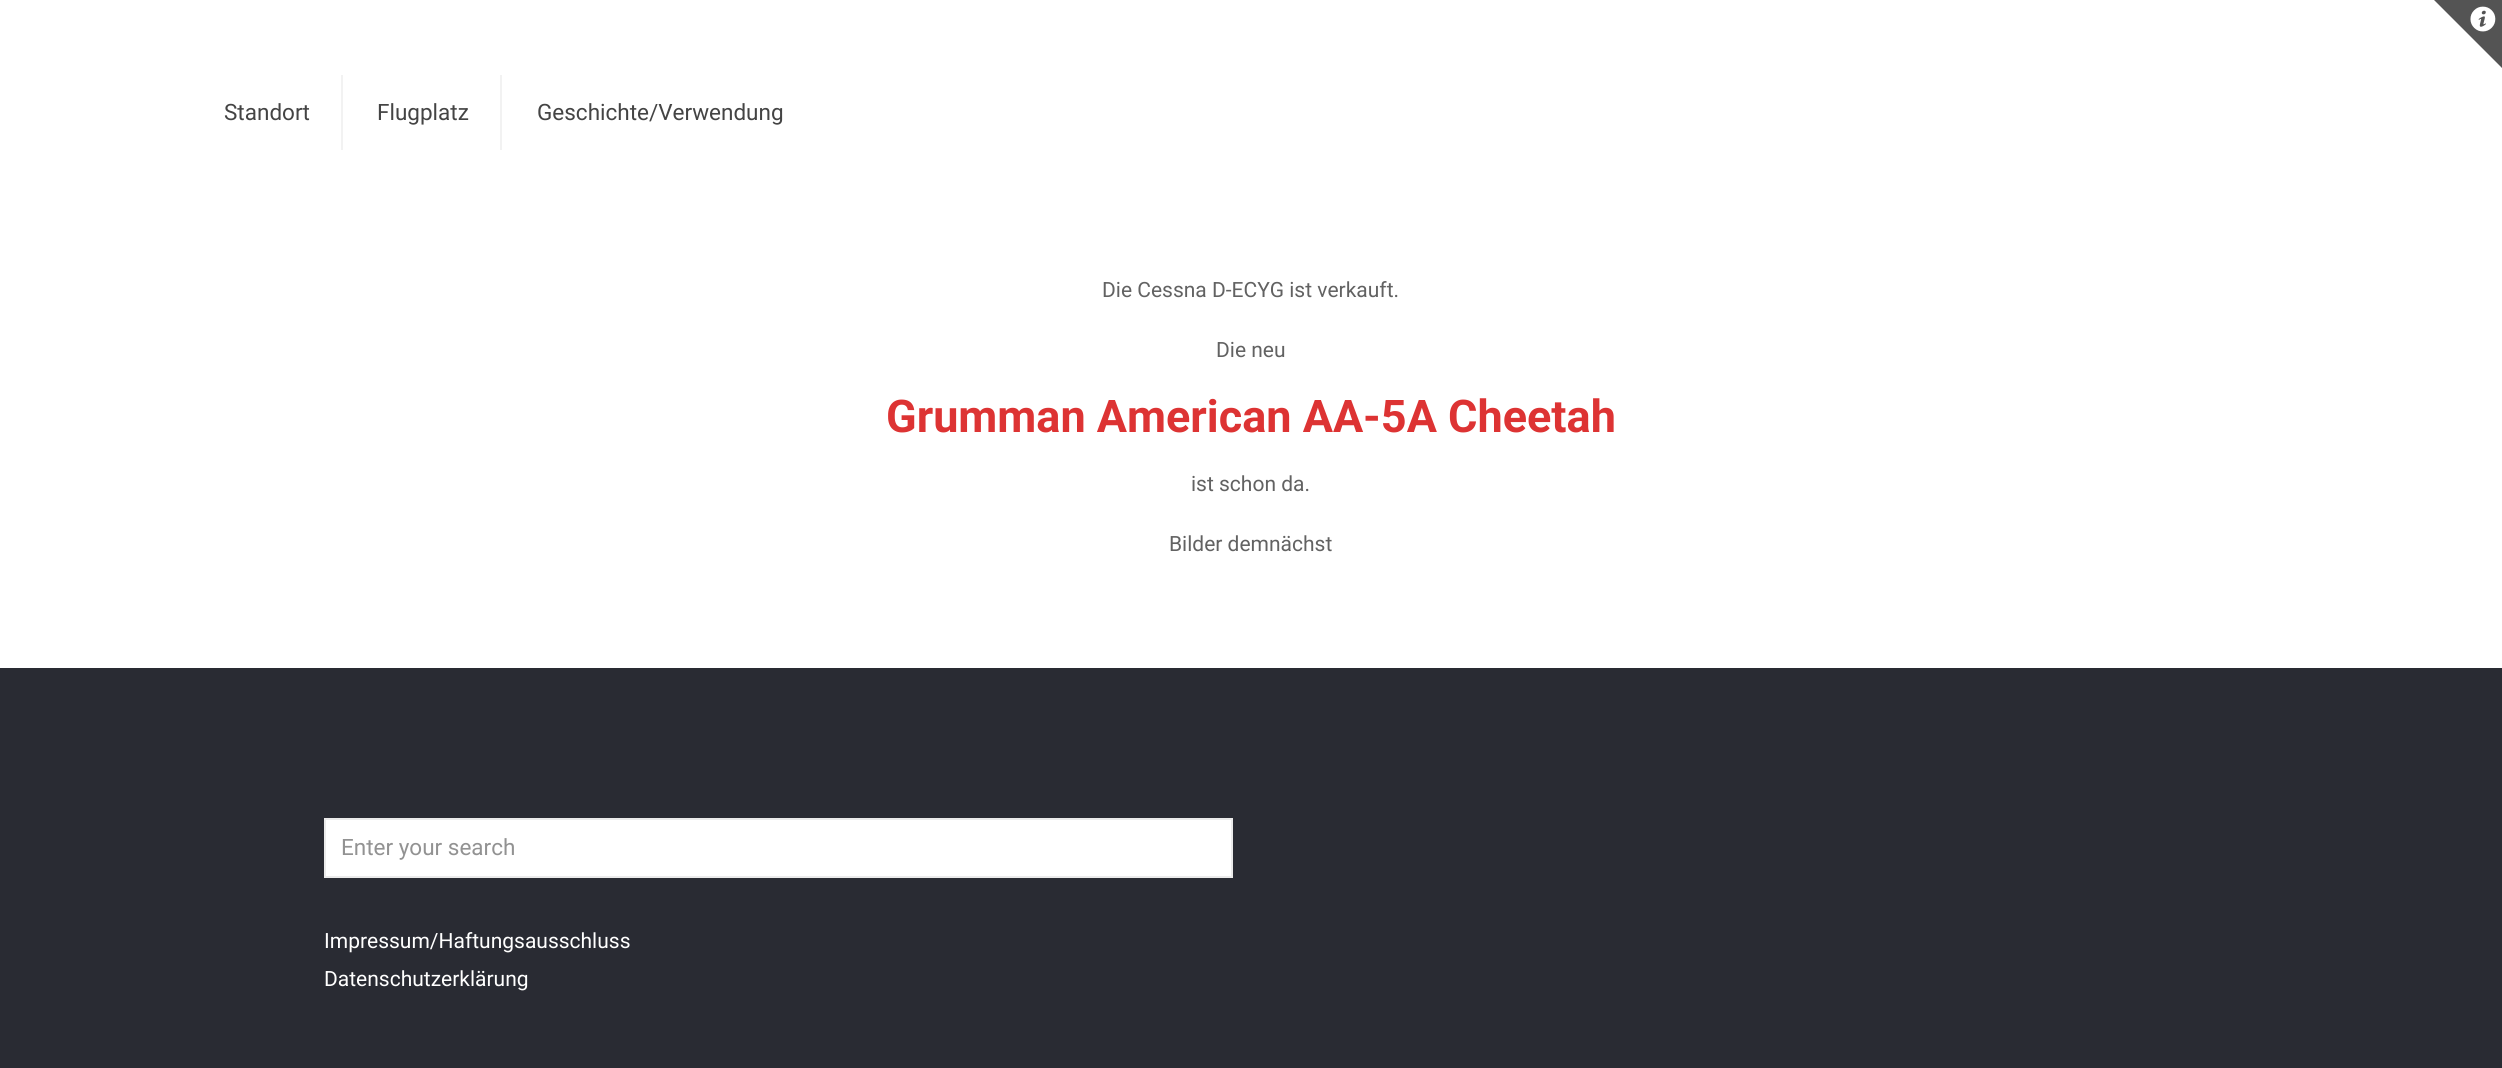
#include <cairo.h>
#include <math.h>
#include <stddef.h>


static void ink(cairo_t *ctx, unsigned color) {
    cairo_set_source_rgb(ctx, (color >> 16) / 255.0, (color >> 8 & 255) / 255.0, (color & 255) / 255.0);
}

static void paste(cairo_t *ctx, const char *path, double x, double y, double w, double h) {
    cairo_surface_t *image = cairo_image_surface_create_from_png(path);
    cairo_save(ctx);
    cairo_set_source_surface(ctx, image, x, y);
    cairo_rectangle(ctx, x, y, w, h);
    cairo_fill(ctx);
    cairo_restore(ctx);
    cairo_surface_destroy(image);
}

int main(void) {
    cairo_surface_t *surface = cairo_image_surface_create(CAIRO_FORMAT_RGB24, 2502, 1068);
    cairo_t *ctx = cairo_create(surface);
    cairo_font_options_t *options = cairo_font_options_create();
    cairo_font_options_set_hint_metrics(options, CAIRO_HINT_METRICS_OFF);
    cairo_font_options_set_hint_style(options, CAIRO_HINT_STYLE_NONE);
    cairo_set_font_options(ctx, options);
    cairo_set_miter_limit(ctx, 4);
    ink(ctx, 0xFFFFFF);
    cairo_paint(ctx);
    ink(ctx, 0x545454);
    cairo_new_path(ctx);
    cairo_move_to(ctx, 2502, 0);
    cairo_line_to(ctx, 2502, 68);
    cairo_line_to(ctx, 2434, 0);
    cairo_close_path(ctx);
    cairo_fill(ctx);
    paste(ctx, "media/1.png", 2470, 6, 26, 26);
    ink(ctx, 0xF2F2F2);
    cairo_rectangle(ctx, 341, 75, 2, 75);
    cairo_fill(ctx);
    cairo_select_font_face(ctx, "Roboto", CAIRO_FONT_SLANT_NORMAL, CAIRO_FONT_WEIGHT_NORMAL);
    cairo_set_font_size(ctx, 22.5);
    ink(ctx, 0x444444);
    cairo_move_to(ctx, 224, 120);
    cairo_show_text(ctx, "Standort");
    ink(ctx, 0xF2F2F2);
    cairo_rectangle(ctx, 500, 75, 2, 75);
    cairo_fill(ctx);
    ink(ctx, 0x444444);
    cairo_move_to(ctx, 377, 120);
    cairo_show_text(ctx, "Flugplatz");
    cairo_move_to(ctx, 537, 120);
    cairo_show_text(ctx, "Geschichte/Verwendung");
    cairo_set_font_size(ctx, 21);
    ink(ctx, 0x626262);
    cairo_move_to(ctx, 1102, 297);
    cairo_show_text(ctx, "Die Cessna D-ECYG ist verkauft.");
    cairo_move_to(ctx, 1216, 357);
    cairo_show_text(ctx, "Die neu");
    cairo_select_font_face(ctx, "Roboto", CAIRO_FONT_SLANT_NORMAL, CAIRO_FONT_WEIGHT_BOLD);
    cairo_set_font_size(ctx, 45);
    ink(ctx, 0xDD3333);
    cairo_move_to(ctx, 886, 432);
    cairo_show_text(ctx, "Grumman American AA-5A Cheetah");
    cairo_select_font_face(ctx, "Roboto", CAIRO_FONT_SLANT_NORMAL, CAIRO_FONT_WEIGHT_NORMAL);
    cairo_set_font_size(ctx, 21);
    ink(ctx, 0x626262);
    cairo_move_to(ctx, 1191, 491);
    cairo_show_text(ctx, "ist schon da.");
    cairo_move_to(ctx, 1169, 551);
    cairo_show_text(ctx, "Bilder demnächst");
    ink(ctx, 0x292B33);
    cairo_rectangle(ctx, 0, 668, 2502, 400);
    cairo_fill(ctx);
    ink(ctx, 0xFFFFFF);
    cairo_rectangle(ctx, 325, 819, 907, 58);
    cairo_fill_preserve(ctx);
    ink(ctx, 0xEBEBEB);
    cairo_stroke(ctx);
    cairo_set_font_size(ctx, 22.5);
    ink(ctx, 0x929292);
    cairo_move_to(ctx, 341, 855);
    cairo_show_text(ctx, "Enter your search");
    cairo_set_font_size(ctx, 21);
    ink(ctx, 0xFFFFFF);
    cairo_move_to(ctx, 324, 948);
    cairo_show_text(ctx, "Impressum/Haftungsausschluss");
    cairo_move_to(ctx, 324, 986);
    cairo_show_text(ctx, "Datenschutzerklärung");
    cairo_surface_write_to_png(surface, "image.png");
    cairo_font_options_destroy(options);
    cairo_destroy(ctx);
    cairo_surface_destroy(surface);
    return 0;
}
